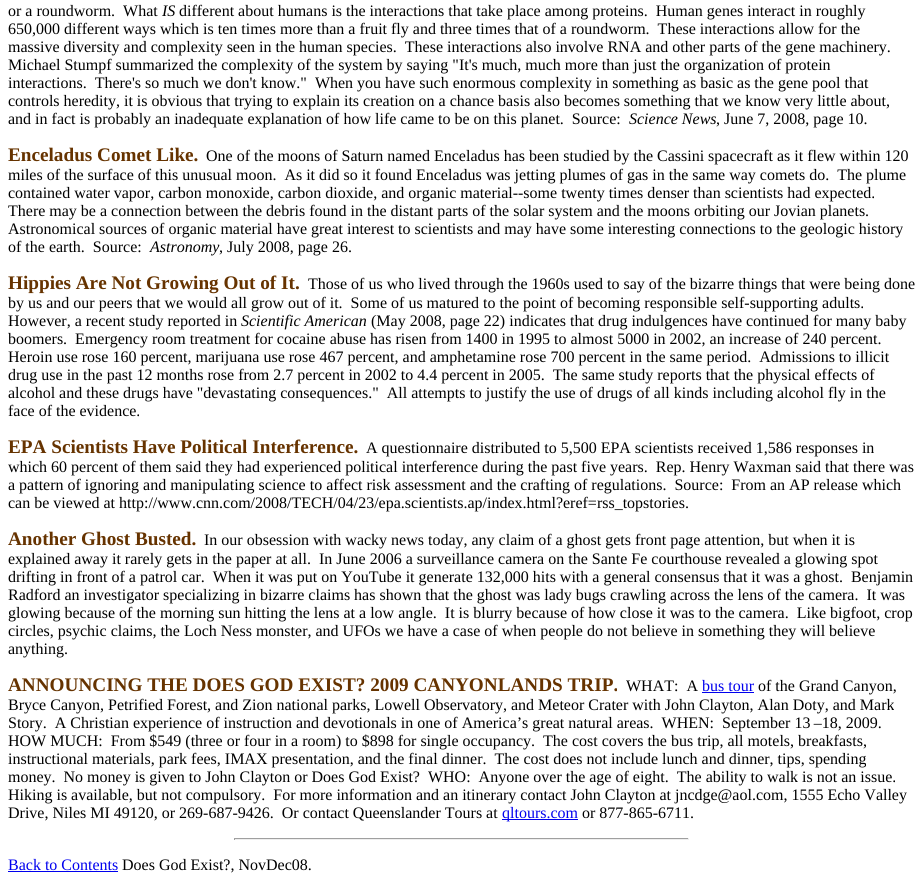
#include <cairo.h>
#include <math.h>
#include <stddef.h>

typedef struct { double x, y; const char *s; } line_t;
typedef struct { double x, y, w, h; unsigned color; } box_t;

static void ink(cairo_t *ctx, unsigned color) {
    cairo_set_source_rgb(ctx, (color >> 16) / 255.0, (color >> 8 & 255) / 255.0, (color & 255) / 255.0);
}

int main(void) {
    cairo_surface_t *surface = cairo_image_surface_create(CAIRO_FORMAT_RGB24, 923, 890);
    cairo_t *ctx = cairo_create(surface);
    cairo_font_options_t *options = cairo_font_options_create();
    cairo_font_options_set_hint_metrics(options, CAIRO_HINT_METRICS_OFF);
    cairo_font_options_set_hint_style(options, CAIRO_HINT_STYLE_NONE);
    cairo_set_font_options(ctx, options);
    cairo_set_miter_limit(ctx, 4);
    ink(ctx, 0xFFFFFF);
    cairo_paint(ctx);
    cairo_select_font_face(ctx, "Liberation Serif", CAIRO_FONT_SLANT_NORMAL, CAIRO_FONT_WEIGHT_NORMAL);
    cairo_set_font_size(ctx, 16);
    ink(ctx, 0x000000);
    cairo_move_to(ctx, 8, 16);
    cairo_show_text(ctx, "or a roundworm.  What");
    cairo_select_font_face(ctx, "Liberation Serif", CAIRO_FONT_SLANT_ITALIC, CAIRO_FONT_WEIGHT_NORMAL);
    cairo_move_to(ctx, 162, 16);
    cairo_show_text(ctx, "IS");
    cairo_select_font_face(ctx, "Liberation Serif", CAIRO_FONT_SLANT_NORMAL, CAIRO_FONT_WEIGHT_NORMAL);
    {
        static const line_t items[] = {
            {179, 16, "different about humans is the interactions that take place among proteins.  Human genes interact in roughly"},
            {8, 34, "650,000 different ways which is ten times more than a fruit fly and three times that of a roundworm.  These interactions allow for the"},
            {8, 52, "massive diversity and complexity seen in the human species.  These interactions also involve RNA and other parts of the gene machinery."},
            {8, 70, "Michael Stumpf summarized the complexity of the system by saying \"It's much, much more than just the organization of protein"},
            {8, 88, "interactions.  There's so much we don't know.\"  When you have such enormous complexity in something as basic as the gene pool that"},
            {8, 106, "controls heredity, it is obvious that trying to explain its creation on a chance basis also becomes something that we know very little about,"},
            {8, 124, "and in fact is probably an inadequate explanation of how life came to be on this planet.  Source:"},
        };
        for (size_t i = 0; i < sizeof items / sizeof *items; i++) {
            cairo_move_to(ctx, items[i].x, items[i].y);
            cairo_show_text(ctx, items[i].s);
        }
    }
    cairo_select_font_face(ctx, "Liberation Serif", CAIRO_FONT_SLANT_ITALIC, CAIRO_FONT_WEIGHT_NORMAL);
    cairo_move_to(ctx, 629, 124);
    cairo_show_text(ctx, "Science News");
    cairo_select_font_face(ctx, "Liberation Serif", CAIRO_FONT_SLANT_NORMAL, CAIRO_FONT_WEIGHT_NORMAL);
    cairo_move_to(ctx, 716, 124);
    cairo_show_text(ctx, ", June 7, 2008, page 10.");
    cairo_select_font_face(ctx, "Liberation Serif", CAIRO_FONT_SLANT_NORMAL, CAIRO_FONT_WEIGHT_BOLD);
    cairo_set_font_size(ctx, 19.2);
    ink(ctx, 0x663300);
    cairo_move_to(ctx, 8, 161);
    cairo_show_text(ctx, "Enceladus Comet Like.");
    cairo_select_font_face(ctx, "Liberation Serif", CAIRO_FONT_SLANT_NORMAL, CAIRO_FONT_WEIGHT_NORMAL);
    cairo_set_font_size(ctx, 16);
    ink(ctx, 0x000000);
    {
        static const line_t items[] = {
            {206, 161, "One of the moons of Saturn named Enceladus has been studied by the Cassini spacecraft as it flew within 120"},
            {8, 180, "miles of the surface of this unusual moon.  As it did so it found Enceladus was jetting plumes of gas in the same way comets do.  The plume"},
            {8, 198, "contained water vapor, carbon monoxide, carbon dioxide, and organic material--some twenty times denser than scientists had expected."},
            {8, 216, "There may be a connection between the debris found in the distant parts of the solar system and the moons orbiting our Jovian planets."},
            {8, 234, "Astronomical sources of organic material have great interest to scientists and may have some interesting connections to the geologic history"},
            {8, 252, "of the earth.  Source:"},
        };
        for (size_t i = 0; i < sizeof items / sizeof *items; i++) {
            cairo_move_to(ctx, items[i].x, items[i].y);
            cairo_show_text(ctx, items[i].s);
        }
    }
    cairo_select_font_face(ctx, "Liberation Serif", CAIRO_FONT_SLANT_ITALIC, CAIRO_FONT_WEIGHT_NORMAL);
    cairo_move_to(ctx, 150, 252);
    cairo_show_text(ctx, "Astronomy");
    cairo_select_font_face(ctx, "Liberation Serif", CAIRO_FONT_SLANT_NORMAL, CAIRO_FONT_WEIGHT_NORMAL);
    cairo_move_to(ctx, 219, 252);
    cairo_show_text(ctx, ", July 2008, page 26.");
    cairo_select_font_face(ctx, "Liberation Serif", CAIRO_FONT_SLANT_NORMAL, CAIRO_FONT_WEIGHT_BOLD);
    cairo_set_font_size(ctx, 19.2);
    ink(ctx, 0x663300);
    cairo_move_to(ctx, 8, 289);
    cairo_show_text(ctx, "Hippies Are Not Growing Out of It.");
    cairo_select_font_face(ctx, "Liberation Serif", CAIRO_FONT_SLANT_NORMAL, CAIRO_FONT_WEIGHT_NORMAL);
    cairo_set_font_size(ctx, 16);
    ink(ctx, 0x000000);
    {
        static const line_t items[] = {
            {308, 289, "Those of us who lived through the 1960s used to say of the bizarre things that were being done"},
            {8, 308, "by us and our peers that we would all grow out of it.  Some of us matured to the point of becoming responsible self-supporting adults."},
            {8, 326, "However, a recent study reported in"},
        };
        for (size_t i = 0; i < sizeof items / sizeof *items; i++) {
            cairo_move_to(ctx, items[i].x, items[i].y);
            cairo_show_text(ctx, items[i].s);
        }
    }
    cairo_select_font_face(ctx, "Liberation Serif", CAIRO_FONT_SLANT_ITALIC, CAIRO_FONT_WEIGHT_NORMAL);
    cairo_move_to(ctx, 241, 326);
    cairo_show_text(ctx, "Scientific American");
    cairo_select_font_face(ctx, "Liberation Serif", CAIRO_FONT_SLANT_NORMAL, CAIRO_FONT_WEIGHT_NORMAL);
    {
        static const line_t items[] = {
            {371, 326, "(May 2008, page 22) indicates that drug indulgences have continued for many baby"},
            {8, 344, "boomers.  Emergency room treatment for cocaine abuse has risen from 1400 in 1995 to almost 5000 in 2002, an increase of 240 percent."},
            {8, 362, "Heroin use rose 160 percent, marijuana use rose 467 percent, and amphetamine rose 700 percent in the same period.  Admissions to illicit"},
            {8, 380, "drug use in the past 12 months rose from 2.7 percent in 2002 to 4.4 percent in 2005.  The same study reports that the physical effects of"},
            {8, 398, "alcohol and these drugs have \"devastating consequences.\"  All attempts to justify the use of drugs of all kinds including alcohol fly in the"},
            {8, 416, "face of the evidence."},
        };
        for (size_t i = 0; i < sizeof items / sizeof *items; i++) {
            cairo_move_to(ctx, items[i].x, items[i].y);
            cairo_show_text(ctx, items[i].s);
        }
    }
    cairo_select_font_face(ctx, "Liberation Serif", CAIRO_FONT_SLANT_NORMAL, CAIRO_FONT_WEIGHT_BOLD);
    cairo_set_font_size(ctx, 19.2);
    ink(ctx, 0x663300);
    cairo_move_to(ctx, 8, 453);
    cairo_show_text(ctx, "EPA Scientists Have Political Interference.");
    cairo_select_font_face(ctx, "Liberation Serif", CAIRO_FONT_SLANT_NORMAL, CAIRO_FONT_WEIGHT_NORMAL);
    cairo_set_font_size(ctx, 16);
    ink(ctx, 0x000000);
    {
        static const line_t items[] = {
            {366, 453, "A questionnaire distributed to 5,500 EPA scientists received 1,586 responses in"},
            {8, 472, "which 60 percent of them said they had experienced political interference during the past five years.  Rep. Henry Waxman said that there was"},
            {8, 490, "a pattern of ignoring and manipulating science to affect risk assessment and the crafting of regulations.  Source:  From an AP release which"},
            {8, 508, "can be viewed at http://www.cnn.com/2008/TECH/04/23/epa.scientists.ap/index.html?eref=rss_topstories."},
        };
        for (size_t i = 0; i < sizeof items / sizeof *items; i++) {
            cairo_move_to(ctx, items[i].x, items[i].y);
            cairo_show_text(ctx, items[i].s);
        }
    }
    cairo_select_font_face(ctx, "Liberation Serif", CAIRO_FONT_SLANT_NORMAL, CAIRO_FONT_WEIGHT_BOLD);
    cairo_set_font_size(ctx, 19.2);
    ink(ctx, 0x663300);
    cairo_move_to(ctx, 8, 545);
    cairo_show_text(ctx, "Another Ghost Busted.");
    cairo_select_font_face(ctx, "Liberation Serif", CAIRO_FONT_SLANT_NORMAL, CAIRO_FONT_WEIGHT_NORMAL);
    cairo_set_font_size(ctx, 16);
    ink(ctx, 0x000000);
    {
        static const line_t items[] = {
            {204, 545, "In our obsession with wacky news today, any claim of a ghost gets front page attention, but when it is"},
            {8, 564, "explained away it rarely gets in the paper at all.  In June 2006 a surveillance camera on the Sante Fe courthouse revealed a glowing spot"},
            {8, 582, "drifting in front of a patrol car.  When it was put on YouTube it generate 132,000 hits with a general consensus that it was a ghost.  Benjamin"},
            {8, 600, "Radford an investigator specializing in bizarre claims has shown that the ghost was lady bugs crawling across the lens of the camera.  It was"},
            {8, 618, "glowing because of the morning sun hitting the lens at a low angle.  It is blurry because of how close it was to the camera.  Like bigfoot, crop"},
            {8, 636, "circles, psychic claims, the Loch Ness monster, and UFOs we have a case of when people do not believe in something they will believe"},
            {8, 654, "anything."},
        };
        for (size_t i = 0; i < sizeof items / sizeof *items; i++) {
            cairo_move_to(ctx, items[i].x, items[i].y);
            cairo_show_text(ctx, items[i].s);
        }
    }
    cairo_select_font_face(ctx, "Liberation Serif", CAIRO_FONT_SLANT_NORMAL, CAIRO_FONT_WEIGHT_BOLD);
    cairo_set_font_size(ctx, 19.2);
    ink(ctx, 0x663300);
    cairo_move_to(ctx, 8, 691);
    cairo_show_text(ctx, "ANNOUNCING THE DOES GOD EXIST? 2009 CANYONLANDS TRIP.");
    cairo_select_font_face(ctx, "Liberation Serif", CAIRO_FONT_SLANT_NORMAL, CAIRO_FONT_WEIGHT_NORMAL);
    cairo_set_font_size(ctx, 16);
    ink(ctx, 0x000000);
    cairo_move_to(ctx, 626, 691);
    cairo_show_text(ctx, "WHAT:  A");
    ink(ctx, 0x0000EE);
    cairo_move_to(ctx, 702, 691);
    cairo_show_text(ctx, "bus tour");
    cairo_rectangle(ctx, 702, 692, 52, 1);
    cairo_fill(ctx);
    ink(ctx, 0x000000);
    {
        static const line_t items[] = {
            {758, 691, "of the Grand Canyon,"},
            {8, 710, "Bryce Canyon, Petrified Forest, and Zion national parks, Lowell Observatory, and Meteor Crater with John Clayton, Alan Doty, and Mark"},
            {8, 728, "Story.  A Christian experience of instruction and devotionals in one of America’s great natural areas.  WHEN:  September 13 –18, 2009."},
            {8, 746, "HOW MUCH:  From $549 (three or four in a room) to $898 for single occupancy.  The cost covers the bus trip, all motels, breakfasts,"},
            {8, 764, "instructional materials, park fees, IMAX presentation, and the final dinner.  The cost does not include lunch and dinner, tips, spending"},
            {8, 782, "money.  No money is given to John Clayton or Does God Exist?  WHO:  Anyone over the age of eight.  The ability to walk is not an issue."},
            {8, 800, "Hiking is available, but not compulsory.  For more information and an itinerary contact John Clayton at jncdge@aol.com, 1555 Echo Valley"},
            {8, 818, "Drive, Niles MI 49120, or 269-687-9426.  Or contact Queenslander Tours at"},
        };
        for (size_t i = 0; i < sizeof items / sizeof *items; i++) {
            cairo_move_to(ctx, items[i].x, items[i].y);
            cairo_show_text(ctx, items[i].s);
        }
    }
    ink(ctx, 0x0000EE);
    cairo_rectangle(ctx, 502, 819, 76, 1);
    cairo_fill(ctx);
    cairo_move_to(ctx, 502, 818);
    cairo_show_text(ctx, "qltours.com");
    ink(ctx, 0x000000);
    cairo_move_to(ctx, 582, 818);
    cairo_show_text(ctx, "or 877-865-6711.");
    {
        static const box_t items[] = {
            {234, 838, 455, 1, 0x9F9F9F},
            {688, 838, 1, 2, 0xEEEEEE},
            {234, 839, 455, 1, 0xEEEEEE},
            {234, 838, 1, 2, 0x9F9F9F},
        };
        for (size_t i = 0; i < sizeof items / sizeof *items; i++) {
            ink(ctx, items[i].color);
            cairo_rectangle(ctx, items[i].x, items[i].y, items[i].w, items[i].h);
            cairo_fill(ctx);
        }
    }
    ink(ctx, 0x0000EE);
    cairo_move_to(ctx, 8, 870);
    cairo_show_text(ctx, "Back to Contents");
    cairo_rectangle(ctx, 8, 871, 110, 1);
    cairo_fill(ctx);
    ink(ctx, 0x000000);
    cairo_move_to(ctx, 122, 870);
    cairo_show_text(ctx, "Does God Exist?, NovDec08.");
    cairo_surface_write_to_png(surface, "image.png");
    cairo_font_options_destroy(options);
    cairo_destroy(ctx);
    cairo_surface_destroy(surface);
    return 0;
}
